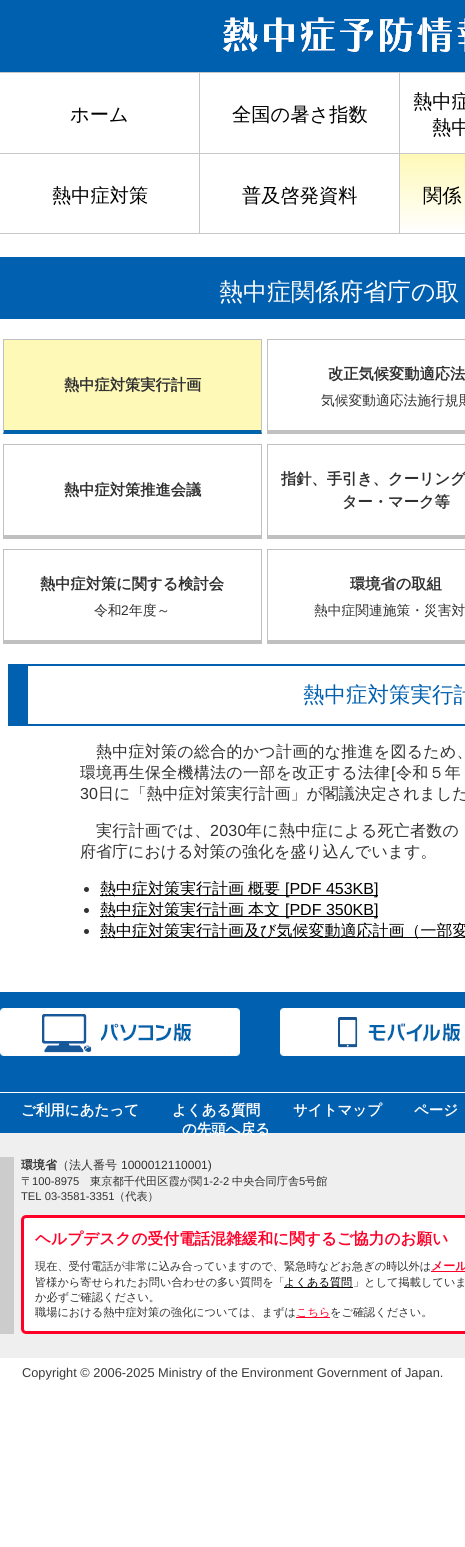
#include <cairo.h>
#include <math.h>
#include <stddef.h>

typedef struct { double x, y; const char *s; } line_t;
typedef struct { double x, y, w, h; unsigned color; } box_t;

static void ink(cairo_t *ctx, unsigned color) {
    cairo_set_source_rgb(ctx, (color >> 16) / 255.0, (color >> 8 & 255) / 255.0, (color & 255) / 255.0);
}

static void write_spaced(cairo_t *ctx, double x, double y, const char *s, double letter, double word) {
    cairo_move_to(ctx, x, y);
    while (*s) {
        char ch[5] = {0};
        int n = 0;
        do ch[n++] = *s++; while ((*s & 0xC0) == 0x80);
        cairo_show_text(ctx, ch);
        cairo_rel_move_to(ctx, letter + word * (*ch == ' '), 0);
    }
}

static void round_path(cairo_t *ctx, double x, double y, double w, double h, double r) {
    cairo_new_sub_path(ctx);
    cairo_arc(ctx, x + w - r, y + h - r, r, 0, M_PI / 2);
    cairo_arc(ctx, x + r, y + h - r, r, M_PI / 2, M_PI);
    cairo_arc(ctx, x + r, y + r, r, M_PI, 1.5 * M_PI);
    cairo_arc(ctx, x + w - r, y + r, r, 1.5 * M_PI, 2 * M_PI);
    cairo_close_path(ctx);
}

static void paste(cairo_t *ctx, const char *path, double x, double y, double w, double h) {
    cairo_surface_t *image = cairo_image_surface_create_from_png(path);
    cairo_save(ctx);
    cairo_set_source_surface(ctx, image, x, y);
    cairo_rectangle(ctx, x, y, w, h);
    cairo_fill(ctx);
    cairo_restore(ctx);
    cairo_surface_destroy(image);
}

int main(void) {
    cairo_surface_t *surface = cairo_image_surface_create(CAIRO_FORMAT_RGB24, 465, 1547);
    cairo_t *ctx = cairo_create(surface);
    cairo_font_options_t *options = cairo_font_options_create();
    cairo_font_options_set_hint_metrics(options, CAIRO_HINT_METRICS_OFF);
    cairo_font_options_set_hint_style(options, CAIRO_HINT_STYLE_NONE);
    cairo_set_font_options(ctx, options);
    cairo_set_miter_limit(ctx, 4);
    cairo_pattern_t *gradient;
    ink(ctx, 0xFFFFFF);
    cairo_paint(ctx);
    ink(ctx, 0x0060B0);
    cairo_rectangle(ctx, 0, 0, 465, 72);
    cairo_fill(ctx);
    paste(ctx, "media/1.png", 223, 17, 242, 35);
    cairo_rectangle(ctx, -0.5, 72.5, 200, 81);
    ink(ctx, 0xC7C7C7);
    cairo_set_line_width(ctx, 1);
    cairo_stroke(ctx);
    cairo_select_font_face(ctx, "WenQuanYi Zen Hei Medium", CAIRO_FONT_SLANT_NORMAL, CAIRO_FONT_WEIGHT_NORMAL);
    cairo_set_font_size(ctx, 19.25);
    ink(ctx, 0x000000);
    cairo_move_to(ctx, 70, 121);
    cairo_show_text(ctx, "ホーム");
    cairo_rectangle(ctx, 199.5, 72.5, 200, 81);
    ink(ctx, 0xC7C7C7);
    cairo_stroke(ctx);
    ink(ctx, 0x000000);
    cairo_move_to(ctx, 232, 121);
    cairo_show_text(ctx, "全国の暑さ指数");
    cairo_rectangle(ctx, 399.5, 72.5, 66, 81);
    ink(ctx, 0xC7C7C7);
    cairo_stroke(ctx);
    ink(ctx, 0x000000);
    cairo_move_to(ctx, 413, 108);
    cairo_show_text(ctx, "熱中症");
    cairo_move_to(ctx, 432, 134);
    cairo_show_text(ctx, "熱中");
    cairo_rectangle(ctx, -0.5, 153.5, 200, 80);
    ink(ctx, 0xC7C7C7);
    cairo_stroke(ctx);
    ink(ctx, 0x000000);
    cairo_move_to(ctx, 52, 202);
    cairo_show_text(ctx, "熱中症対策");
    cairo_rectangle(ctx, 199.5, 153.5, 200, 80);
    ink(ctx, 0xC7C7C7);
    cairo_stroke(ctx);
    ink(ctx, 0x000000);
    cairo_move_to(ctx, 242, 202);
    cairo_show_text(ctx, "普及啓発資料");
    gradient = cairo_pattern_create_linear(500, 154, 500, 233);
    cairo_pattern_add_color_stop_rgba(gradient, 0, 0.996, 0.976, 0.718, 1);
    cairo_pattern_add_color_stop_rgba(gradient, 1, 0.996, 0.976, 0.718, 0);
    cairo_set_source(ctx, gradient);
    cairo_pattern_destroy(gradient);
    cairo_rectangle(ctx, 400, 154, 65, 76);
    cairo_fill(ctx);
    cairo_rectangle(ctx, 399.5, 153.5, 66, 80);
    ink(ctx, 0xC7C7C7);
    cairo_stroke(ctx);
    ink(ctx, 0x000000);
    cairo_move_to(ctx, 423, 202);
    cairo_show_text(ctx, "関係");
    ink(ctx, 0x0160B0);
    cairo_rectangle(ctx, 0, 257, 465, 62);
    cairo_fill(ctx);
    cairo_set_font_size(ctx, 24);
    ink(ctx, 0xFFFFFF);
    cairo_move_to(ctx, 219, 300);
    cairo_show_text(ctx, "熱中症関係府省庁の取");
    ink(ctx, 0xFEF9B7);
    cairo_rectangle(ctx, 4, 340, 257, 90);
    cairo_fill(ctx);
    ink(ctx, 0xC0C0C0);
    cairo_rectangle(ctx, 3, 339, 259, 1);
    cairo_fill(ctx);
    cairo_new_path(ctx);
    cairo_move_to(ctx, 262, 339);
    cairo_line_to(ctx, 262, 434);
    cairo_line_to(ctx, 261, 430);
    cairo_line_to(ctx, 261, 340);
    cairo_close_path(ctx);
    cairo_fill(ctx);
    ink(ctx, 0x0063AC);
    cairo_new_path(ctx);
    cairo_move_to(ctx, 262, 434);
    cairo_line_to(ctx, 3, 434);
    cairo_line_to(ctx, 4, 430);
    cairo_line_to(ctx, 261, 430);
    cairo_close_path(ctx);
    cairo_fill(ctx);
    ink(ctx, 0xC0C0C0);
    cairo_new_path(ctx);
    cairo_move_to(ctx, 3, 434);
    cairo_line_to(ctx, 3, 339);
    cairo_line_to(ctx, 4, 340);
    cairo_line_to(ctx, 4, 430);
    cairo_close_path(ctx);
    cairo_fill(ctx);
    cairo_select_font_face(ctx, "WenQuanYi Zen Hei", CAIRO_FONT_SLANT_NORMAL, CAIRO_FONT_WEIGHT_BOLD);
    cairo_set_font_size(ctx, 15.25);
    ink(ctx, 0x313131);
    cairo_move_to(ctx, 64, 390);
    cairo_show_text(ctx, "熱中症対策実行計画");
    {
        static const box_t items[] = {
            {267, 339, 198, 1, 0xC0C0C0},
            {267, 430, 198, 4, 0xC0C0C0},
            {267, 339, 1, 95, 0xC0C0C0},
        };
        for (size_t i = 0; i < sizeof items / sizeof *items; i++) {
            ink(ctx, items[i].color);
            cairo_rectangle(ctx, items[i].x, items[i].y, items[i].w, items[i].h);
            cairo_fill(ctx);
        }
    }
    ink(ctx, 0x313131);
    cairo_move_to(ctx, 328, 379);
    cairo_show_text(ctx, "改正気候変動適応法");
    cairo_select_font_face(ctx, "WenQuanYi Zen Hei Medium", CAIRO_FONT_SLANT_NORMAL, CAIRO_FONT_WEIGHT_NORMAL);
    cairo_set_font_size(ctx, 13.75);
    cairo_move_to(ctx, 321, 405);
    cairo_show_text(ctx, "気候変動適応法施行規則");
    {
        static const box_t items[] = {
            {3, 444, 259, 1, 0xC0C0C0},
            {261, 444, 1, 95, 0xC0C0C0},
            {3, 535, 259, 4, 0xC0C0C0},
            {3, 444, 1, 95, 0xC0C0C0},
        };
        for (size_t i = 0; i < sizeof items / sizeof *items; i++) {
            ink(ctx, items[i].color);
            cairo_rectangle(ctx, items[i].x, items[i].y, items[i].w, items[i].h);
            cairo_fill(ctx);
        }
    }
    cairo_select_font_face(ctx, "WenQuanYi Zen Hei", CAIRO_FONT_SLANT_NORMAL, CAIRO_FONT_WEIGHT_BOLD);
    cairo_set_font_size(ctx, 15.25);
    ink(ctx, 0x313131);
    cairo_move_to(ctx, 64, 495);
    cairo_show_text(ctx, "熱中症対策推進会議");
    {
        static const box_t items[] = {
            {267, 444, 198, 1, 0xC0C0C0},
            {267, 535, 198, 4, 0xC0C0C0},
            {267, 444, 1, 95, 0xC0C0C0},
        };
        for (size_t i = 0; i < sizeof items / sizeof *items; i++) {
            ink(ctx, items[i].color);
            cairo_rectangle(ctx, items[i].x, items[i].y, items[i].w, items[i].h);
            cairo_fill(ctx);
        }
    }
    ink(ctx, 0x313131);
    cairo_move_to(ctx, 281, 484);
    cairo_show_text(ctx, "指針、手引き、クーリング");
    cairo_move_to(ctx, 342, 507);
    cairo_show_text(ctx, "ター・マーク等");
    {
        static const box_t items[] = {
            {3, 549, 259, 1, 0xC0C0C0},
            {261, 549, 1, 95, 0xC0C0C0},
            {3, 640, 259, 4, 0xC0C0C0},
            {3, 549, 1, 95, 0xC0C0C0},
        };
        for (size_t i = 0; i < sizeof items / sizeof *items; i++) {
            ink(ctx, items[i].color);
            cairo_rectangle(ctx, items[i].x, items[i].y, items[i].w, items[i].h);
            cairo_fill(ctx);
        }
    }
    ink(ctx, 0x313131);
    cairo_move_to(ctx, 40, 589);
    cairo_show_text(ctx, "熱中症対策に関する検討会");
    cairo_select_font_face(ctx, "WenQuanYi Zen Hei Medium", CAIRO_FONT_SLANT_NORMAL, CAIRO_FONT_WEIGHT_NORMAL);
    cairo_set_font_size(ctx, 13.75);
    cairo_move_to(ctx, 94, 615);
    cairo_show_text(ctx, "令和");
    cairo_select_font_face(ctx, "Liberation Sans", CAIRO_FONT_SLANT_NORMAL, CAIRO_FONT_WEIGHT_NORMAL);
    cairo_move_to(ctx, 121, 615);
    cairo_show_text(ctx, "2");
    cairo_select_font_face(ctx, "WenQuanYi Zen Hei Medium", CAIRO_FONT_SLANT_NORMAL, CAIRO_FONT_WEIGHT_NORMAL);
    cairo_move_to(ctx, 129, 615);
    cairo_show_text(ctx, "年度～");
    {
        static const box_t items[] = {
            {267, 549, 198, 1, 0xC0C0C0},
            {267, 640, 198, 4, 0xC0C0C0},
            {267, 549, 1, 95, 0xC0C0C0},
        };
        for (size_t i = 0; i < sizeof items / sizeof *items; i++) {
            ink(ctx, items[i].color);
            cairo_rectangle(ctx, items[i].x, items[i].y, items[i].w, items[i].h);
            cairo_fill(ctx);
        }
    }
    cairo_select_font_face(ctx, "WenQuanYi Zen Hei", CAIRO_FONT_SLANT_NORMAL, CAIRO_FONT_WEIGHT_BOLD);
    cairo_set_font_size(ctx, 15.25);
    ink(ctx, 0x313131);
    cairo_move_to(ctx, 350, 589);
    cairo_show_text(ctx, "環境省の取組");
    cairo_select_font_face(ctx, "WenQuanYi Zen Hei Medium", CAIRO_FONT_SLANT_NORMAL, CAIRO_FONT_WEIGHT_NORMAL);
    cairo_set_font_size(ctx, 13.75);
    cairo_move_to(ctx, 314, 615);
    cairo_show_text(ctx, "熱中症関連施策・災害対");
    {
        static const box_t items[] = {
            {28, 664, 437, 2, 0x0160B0},
            {28, 724, 437, 2, 0x0160B0},
            {8, 664, 20, 62, 0x0160B0},
        };
        for (size_t i = 0; i < sizeof items / sizeof *items; i++) {
            ink(ctx, items[i].color);
            cairo_rectangle(ctx, items[i].x, items[i].y, items[i].w, items[i].h);
            cairo_fill(ctx);
        }
    }
    cairo_set_font_size(ctx, 21.5);
    cairo_move_to(ctx, 303, 702);
    cairo_show_text(ctx, "熱中症対策実行計");
    cairo_set_font_size(ctx, 16);
    ink(ctx, 0x313131);
    write_spaced(ctx, 96, 757, "熱中症対策の総合的かつ計画的な推進を図るため、", 0.25, 0);
    write_spaced(ctx, 80, 778, "環境再生保全機構法の一部を改正する法律", 0.25, 0);
    cairo_select_font_face(ctx, "Liberation Sans", CAIRO_FONT_SLANT_NORMAL, CAIRO_FONT_WEIGHT_NORMAL);
    write_spaced(ctx, 391, 778, "[", 0.25, 0);
    cairo_select_font_face(ctx, "WenQuanYi Zen Hei Medium", CAIRO_FONT_SLANT_NORMAL, CAIRO_FONT_WEIGHT_NORMAL);
    write_spaced(ctx, 396, 778, "令和５年", 0.25, 0);
    cairo_select_font_face(ctx, "Liberation Sans", CAIRO_FONT_SLANT_NORMAL, CAIRO_FONT_WEIGHT_NORMAL);
    cairo_move_to(ctx, 80, 799);
    cairo_show_text(ctx, "30");
    cairo_select_font_face(ctx, "WenQuanYi Zen Hei Medium", CAIRO_FONT_SLANT_NORMAL, CAIRO_FONT_WEIGHT_NORMAL);
    cairo_move_to(ctx, 98, 799);
    cairo_show_text(ctx, "日に「熱中症対策実行計画」が閣議決定されました");
    write_spaced(ctx, 96, 836, "実行計画では、", 0.25, 0);
    cairo_select_font_face(ctx, "Liberation Sans", CAIRO_FONT_SLANT_NORMAL, CAIRO_FONT_WEIGHT_NORMAL);
    write_spaced(ctx, 210, 836, "2030", 0.25, 0);
    cairo_select_font_face(ctx, "WenQuanYi Zen Hei Medium", CAIRO_FONT_SLANT_NORMAL, CAIRO_FONT_WEIGHT_NORMAL);
    write_spaced(ctx, 246, 836, "年に熱中症による死亡者数の", 0.25, 0);
    cairo_move_to(ctx, 80, 857);
    cairo_show_text(ctx, "府省庁における対策の強化を盛り込んでいます。");
    cairo_new_path(ctx);
    cairo_arc(ctx, 86.5, 889.5, 2.5, 0, 2 * M_PI);
    cairo_fill(ctx);
    ink(ctx, 0x000000);
    cairo_rectangle(ctx, 100, 895, 278, 1);
    cairo_fill(ctx);
    cairo_move_to(ctx, 100, 894);
    cairo_show_text(ctx, "熱中症対策実行計画");
    cairo_move_to(ctx, 248, 894);
    cairo_show_text(ctx, "概要");
    cairo_select_font_face(ctx, "Liberation Sans", CAIRO_FONT_SLANT_NORMAL, CAIRO_FONT_WEIGHT_NORMAL);
    cairo_move_to(ctx, 285, 894);
    cairo_show_text(ctx, "[PDF 453KB]");
    ink(ctx, 0x313131);
    cairo_new_path(ctx);
    cairo_arc(ctx, 86.5, 910.5, 2.5, 0, 2 * M_PI);
    cairo_fill(ctx);
    ink(ctx, 0x000000);
    cairo_rectangle(ctx, 100, 916, 278, 1);
    cairo_fill(ctx);
    cairo_select_font_face(ctx, "WenQuanYi Zen Hei Medium", CAIRO_FONT_SLANT_NORMAL, CAIRO_FONT_WEIGHT_NORMAL);
    cairo_move_to(ctx, 100, 915);
    cairo_show_text(ctx, "熱中症対策実行計画");
    cairo_move_to(ctx, 248, 915);
    cairo_show_text(ctx, "本文");
    cairo_select_font_face(ctx, "Liberation Sans", CAIRO_FONT_SLANT_NORMAL, CAIRO_FONT_WEIGHT_NORMAL);
    cairo_move_to(ctx, 285, 915);
    cairo_show_text(ctx, "[PDF 350KB]");
    ink(ctx, 0x313131);
    cairo_new_path(ctx);
    cairo_arc(ctx, 86.5, 931.5, 2.5, 0, 2 * M_PI);
    cairo_fill(ctx);
    ink(ctx, 0x000000);
    cairo_rectangle(ctx, 100, 937, 365, 1);
    cairo_fill(ctx);
    cairo_select_font_face(ctx, "WenQuanYi Zen Hei Medium", CAIRO_FONT_SLANT_NORMAL, CAIRO_FONT_WEIGHT_NORMAL);
    cairo_move_to(ctx, 100, 936);
    cairo_show_text(ctx, "熱中症対策実行計画及び気候変動適応計画（一部変");
    ink(ctx, 0x0160B0);
    cairo_rectangle(ctx, 0, 992, 465, 141);
    cairo_fill(ctx);
    paste(ctx, "media/2.png", 0, 1008, 240, 48);
    paste(ctx, "media/3.png", 280, 1008, 185, 48);
    ink(ctx, 0xFFFFFF);
    cairo_rectangle(ctx, 0, 1092, 465, 1);
    cairo_fill(ctx);
    cairo_select_font_face(ctx, "WenQuanYi Zen Hei", CAIRO_FONT_SLANT_NORMAL, CAIRO_FONT_WEIGHT_BOLD);
    cairo_set_font_size(ctx, 14.5);
    {
        static const line_t items[] = {
            {21, 1115, "ご利用にあたって"},
            {172, 1115, "よくある質問"},
            {293, 1115, "サイトマップ"},
            {414, 1115, "ページ"},
        };
        for (size_t i = 0; i < sizeof items / sizeof *items; i++) {
            cairo_move_to(ctx, items[i].x, items[i].y);
            cairo_show_text(ctx, items[i].s);
        }
    }
    ink(ctx, 0xEFEFEF);
    cairo_rectangle(ctx, 0, 1133, 465, 225);
    cairo_fill(ctx);
    ink(ctx, 0xFFFFFF);
    cairo_move_to(ctx, 182, 1134);
    cairo_show_text(ctx, "の先頭へ戻る");
    ink(ctx, 0xCCCCCC);
    cairo_rectangle(ctx, 0, 1157, 14, 177);
    cairo_fill(ctx);
    cairo_set_font_size(ctx, 12);
    ink(ctx, 0x313131);
    cairo_move_to(ctx, 21, 1169);
    cairo_show_text(ctx, "環境省");
    cairo_select_font_face(ctx, "WenQuanYi Zen Hei Medium", CAIRO_FONT_SLANT_NORMAL, CAIRO_FONT_WEIGHT_NORMAL);
    cairo_move_to(ctx, 57, 1169);
    cairo_show_text(ctx, "（法人番号");
    cairo_select_font_face(ctx, "Liberation Sans", CAIRO_FONT_SLANT_NORMAL, CAIRO_FONT_WEIGHT_NORMAL);
    cairo_move_to(ctx, 121, 1169);
    cairo_show_text(ctx, "1000012110001)");
    cairo_select_font_face(ctx, "WenQuanYi Zen Hei Medium", CAIRO_FONT_SLANT_NORMAL, CAIRO_FONT_WEIGHT_NORMAL);
    cairo_set_font_size(ctx, 11.2);
    cairo_move_to(ctx, 21, 1185);
    cairo_show_text(ctx, "〒");
    cairo_select_font_face(ctx, "Liberation Sans", CAIRO_FONT_SLANT_NORMAL, CAIRO_FONT_WEIGHT_NORMAL);
    cairo_move_to(ctx, 32, 1185);
    cairo_show_text(ctx, "100-8975");
    cairo_select_font_face(ctx, "WenQuanYi Zen Hei Medium", CAIRO_FONT_SLANT_NORMAL, CAIRO_FONT_WEIGHT_NORMAL);
    cairo_move_to(ctx, 90, 1185);
    cairo_show_text(ctx, "東京都千代田区霞が関");
    cairo_select_font_face(ctx, "Liberation Sans", CAIRO_FONT_SLANT_NORMAL, CAIRO_FONT_WEIGHT_NORMAL);
    cairo_move_to(ctx, 203, 1185);
    cairo_show_text(ctx, "1-2-2");
    cairo_select_font_face(ctx, "WenQuanYi Zen Hei Medium", CAIRO_FONT_SLANT_NORMAL, CAIRO_FONT_WEIGHT_NORMAL);
    cairo_move_to(ctx, 232, 1185);
    cairo_show_text(ctx, "中央合同庁舎");
    cairo_select_font_face(ctx, "Liberation Sans", CAIRO_FONT_SLANT_NORMAL, CAIRO_FONT_WEIGHT_NORMAL);
    cairo_move_to(ctx, 299, 1185);
    cairo_show_text(ctx, "5");
    cairo_select_font_face(ctx, "WenQuanYi Zen Hei Medium", CAIRO_FONT_SLANT_NORMAL, CAIRO_FONT_WEIGHT_NORMAL);
    cairo_move_to(ctx, 305, 1185);
    cairo_show_text(ctx, "号館");
    cairo_select_font_face(ctx, "Liberation Sans", CAIRO_FONT_SLANT_NORMAL, CAIRO_FONT_WEIGHT_NORMAL);
    cairo_move_to(ctx, 21, 1200);
    cairo_show_text(ctx, "TEL 03-3581-3351");
    cairo_select_font_face(ctx, "WenQuanYi Zen Hei Medium", CAIRO_FONT_SLANT_NORMAL, CAIRO_FONT_WEIGHT_NORMAL);
    cairo_move_to(ctx, 114, 1200);
    cairo_show_text(ctx, "（代表）");
    ink(ctx, 0xFFFFFF);
    round_path(ctx, 22.5, 1216.5, 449, 116, 3.5);
    cairo_fill_preserve(ctx);
    ink(ctx, 0xFF0028);
    cairo_set_line_width(ctx, 3);
    cairo_stroke(ctx);
    cairo_select_font_face(ctx, "WenQuanYi Zen Hei", CAIRO_FONT_SLANT_NORMAL, CAIRO_FONT_WEIGHT_BOLD);
    cairo_set_font_size(ctx, 15.7);
    cairo_move_to(ctx, 35, 1244);
    cairo_show_text(ctx, "ヘルプデスクの受付電話混雑緩和に関するご協力のお願い");
    cairo_select_font_face(ctx, "WenQuanYi Zen Hei Medium", CAIRO_FONT_SLANT_NORMAL, CAIRO_FONT_WEIGHT_NORMAL);
    cairo_set_font_size(ctx, 11.2);
    ink(ctx, 0x313131);
    cairo_move_to(ctx, 35, 1270);
    cairo_show_text(ctx, "現在、受付電話が非常に込み合っていますので、緊急時などお急ぎの時以外は");
    cairo_select_font_face(ctx, "WenQuanYi Zen Hei", CAIRO_FONT_SLANT_NORMAL, CAIRO_FONT_WEIGHT_BOLD);
    cairo_set_font_size(ctx, 12);
    ink(ctx, 0xFF0028);
    cairo_move_to(ctx, 431, 1270);
    cairo_show_text(ctx, "メール");
    cairo_rectangle(ctx, 431, 1271, 34, 1);
    cairo_fill(ctx);
    cairo_select_font_face(ctx, "WenQuanYi Zen Hei Medium", CAIRO_FONT_SLANT_NORMAL, CAIRO_FONT_WEIGHT_NORMAL);
    cairo_set_font_size(ctx, 11.2);
    ink(ctx, 0x313131);
    cairo_move_to(ctx, 35, 1286);
    cairo_show_text(ctx, "皆様から寄せられたお問い合わせの多い質問を「");
    ink(ctx, 0x000000);
    cairo_rectangle(ctx, 284, 1287, 69, 1);
    cairo_fill(ctx);
    cairo_move_to(ctx, 284, 1286);
    cairo_show_text(ctx, "よくある質問");
    ink(ctx, 0x313131);
    {
        static const line_t items[] = {
            {353, 1286, "」として掲載していま"},
            {35, 1301, "か必ずご確認ください。"},
            {35, 1316, "職場における熱中症対策の強化については、まずは"},
        };
        for (size_t i = 0; i < sizeof items / sizeof *items; i++) {
            cairo_move_to(ctx, items[i].x, items[i].y);
            cairo_show_text(ctx, items[i].s);
        }
    }
    ink(ctx, 0xFF0028);
    cairo_rectangle(ctx, 296, 1317, 34, 1);
    cairo_fill(ctx);
    cairo_move_to(ctx, 296, 1316);
    cairo_show_text(ctx, "こちら");
    ink(ctx, 0x313131);
    cairo_move_to(ctx, 330, 1316);
    cairo_show_text(ctx, "をご確認ください。");
    cairo_select_font_face(ctx, "Liberation Sans", CAIRO_FONT_SLANT_NORMAL, CAIRO_FONT_WEIGHT_NORMAL);
    cairo_set_font_size(ctx, 12.8);
    ink(ctx, 0x3A3A3A);
    cairo_move_to(ctx, 22, 1377);
    cairo_show_text(ctx, "Copyright © 2006-2025 Ministry of the Environment Government of Japan.");
    cairo_surface_write_to_png(surface, "image.png");
    cairo_font_options_destroy(options);
    cairo_destroy(ctx);
    cairo_surface_destroy(surface);
    return 0;
}
